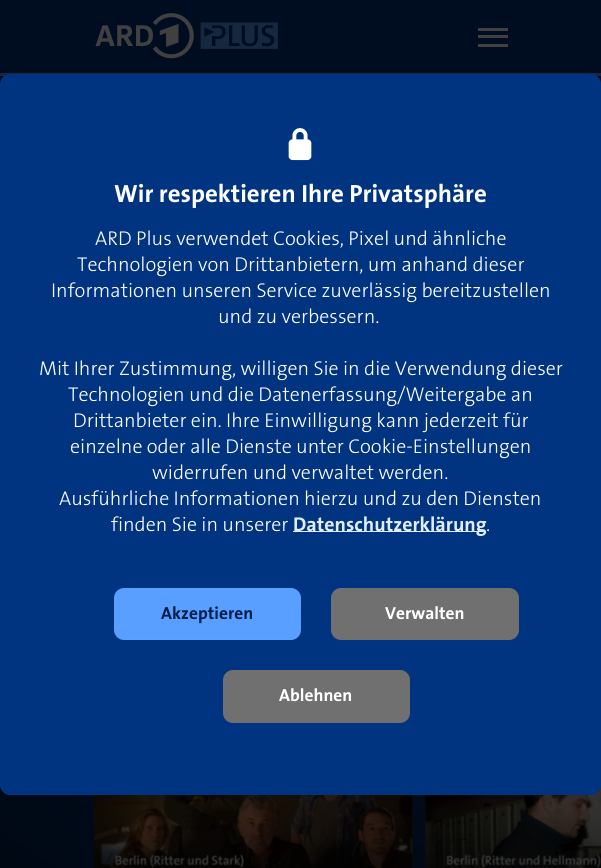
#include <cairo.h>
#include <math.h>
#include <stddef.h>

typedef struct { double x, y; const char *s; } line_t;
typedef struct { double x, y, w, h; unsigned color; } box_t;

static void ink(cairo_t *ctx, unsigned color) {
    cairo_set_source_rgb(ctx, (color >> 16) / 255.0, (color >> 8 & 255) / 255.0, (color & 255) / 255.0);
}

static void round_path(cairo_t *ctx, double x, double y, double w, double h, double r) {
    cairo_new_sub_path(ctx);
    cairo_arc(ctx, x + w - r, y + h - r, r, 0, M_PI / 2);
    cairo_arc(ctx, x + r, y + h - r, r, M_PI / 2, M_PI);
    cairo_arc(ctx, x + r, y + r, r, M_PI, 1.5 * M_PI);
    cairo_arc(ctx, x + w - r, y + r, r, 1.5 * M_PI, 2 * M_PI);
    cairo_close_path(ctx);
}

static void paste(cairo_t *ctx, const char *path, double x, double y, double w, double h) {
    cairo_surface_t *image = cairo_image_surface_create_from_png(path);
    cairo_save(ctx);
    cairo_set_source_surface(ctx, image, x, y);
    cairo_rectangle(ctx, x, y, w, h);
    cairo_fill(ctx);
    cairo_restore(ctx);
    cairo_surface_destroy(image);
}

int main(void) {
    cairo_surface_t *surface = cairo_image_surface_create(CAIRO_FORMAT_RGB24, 601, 868);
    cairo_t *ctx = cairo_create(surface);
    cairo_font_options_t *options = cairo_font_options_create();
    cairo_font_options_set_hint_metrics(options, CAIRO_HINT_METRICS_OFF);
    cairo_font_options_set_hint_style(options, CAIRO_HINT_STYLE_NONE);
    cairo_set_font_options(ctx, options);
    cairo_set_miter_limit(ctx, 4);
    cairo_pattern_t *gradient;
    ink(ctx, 0xFFFFFF);
    cairo_paint(ctx);
    ink(ctx, 0x000D20);
    cairo_rectangle(ctx, 0, 0, 601, 73);
    cairo_fill(ctx);
    ink(ctx, 0x162840);
    cairo_rectangle(ctx, 0, 73, 601, 3);
    cairo_fill(ctx);
    paste(ctx, "media/1.png", 95, 13, 183, 46);
    {
        static const box_t items[] = {
            {478, 28, 30, 3, 0x404040},
            {478, 35, 30, 3, 0x404040},
            {478, 44, 30, 3, 0x404040},
        };
        for (size_t i = 0; i < sizeof items / sizeof *items; i++) {
            ink(ctx, items[i].color);
            cairo_rectangle(ctx, items[i].x, items[i].y, items[i].w, items[i].h);
            cairo_fill(ctx);
        }
    }
    gradient = cairo_pattern_create_radial(301, 434, 0, 301, 434, 528);
    cairo_pattern_add_color_stop_rgba(gradient, 0, 0.008, 0.071, 0.153, 1);
    cairo_pattern_add_color_stop_rgba(gradient, 1, 0, 0.031, 0.078, 1);
    cairo_set_source(ctx, gradient);
    cairo_pattern_destroy(gradient);
    cairo_rectangle(ctx, 0, 76, 601, 792);
    cairo_fill(ctx);
    ink(ctx, 0x0D0D0D);
    cairo_rectangle(ctx, 411, 795, 2, 73);
    cairo_fill(ctx);
    paste(ctx, "media/2.png", 94, 795, 319, 73);
    cairo_rectangle(ctx, 425, 795, 1, 73);
    cairo_fill(ctx);
    paste(ctx, "media/3.png", 424, 785, 177, 83);
    ink(ctx, 0x003480);
    round_path(ctx, 0, 74, 601, 721, 10);
    cairo_fill(ctx);
    paste(ctx, "media/4.png", 288, 128, 24, 33);
    cairo_select_font_face(ctx, "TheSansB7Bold", CAIRO_FONT_SLANT_NORMAL, CAIRO_FONT_WEIGHT_BOLD);
    cairo_set_font_size(ctx, 25);
    ink(ctx, 0xFFFFFF);
    cairo_move_to(ctx, 114, 202);
    cairo_show_text(ctx, "Wir respektieren Ihre Privatsphäre");
    cairo_select_font_face(ctx, "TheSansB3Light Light", CAIRO_FONT_SLANT_NORMAL, CAIRO_FONT_WEIGHT_NORMAL);
    cairo_set_font_size(ctx, 20);
    {
        static const line_t items[] = {
            {95, 245, "ARD Plus verwendet Cookies, Pixel und ähnliche"},
            {77, 271, "Technologien von Drittanbietern, um anhand dieser"},
            {51, 297, "Informationen unseren Service zuverlässig bereitzustellen"},
            {218, 323, "und zu verbessern."},
            {39, 375, "Mit Ihrer Zustimmung, willigen Sie in die Verwendung dieser"},
            {68, 401, "Technologien und die Datenerfassung/Weitergabe an"},
            {73, 427, "Drittanbieter ein. Ihre Einwilligung kann jederzeit für"},
            {70, 453, "einzelne oder alle Dienste unter Cookie-Einstellungen"},
            {152, 479, "widerrufen und verwaltet werden."},
            {59, 505, "Ausführliche Informationen hierzu und zu den Diensten"},
            {111, 531, "finden Sie in unserer"},
        };
        for (size_t i = 0; i < sizeof items / sizeof *items; i++) {
            cairo_move_to(ctx, items[i].x, items[i].y);
            cairo_show_text(ctx, items[i].s);
        }
    }
    ink(ctx, 0xE1ECFD);
    cairo_rectangle(ctx, 293, 531, 193, 1);
    cairo_fill(ctx);
    cairo_select_font_face(ctx, "TheSansB7Bold", CAIRO_FONT_SLANT_NORMAL, CAIRO_FONT_WEIGHT_BOLD);
    cairo_move_to(ctx, 293, 531);
    cairo_show_text(ctx, "Datenschutzerklärung");
    cairo_select_font_face(ctx, "TheSansB3Light Light", CAIRO_FONT_SLANT_NORMAL, CAIRO_FONT_WEIGHT_NORMAL);
    ink(ctx, 0xFFFFFF);
    cairo_move_to(ctx, 486, 531);
    cairo_show_text(ctx, ".");
    ink(ctx, 0x589FFF);
    round_path(ctx, 115.5, 589.5, 184, 49, 8.5);
    cairo_fill_preserve(ctx);
    cairo_set_line_width(ctx, 3);
    cairo_stroke(ctx);
    cairo_select_font_face(ctx, "TheSansB7Bold", CAIRO_FONT_SLANT_NORMAL, CAIRO_FONT_WEIGHT_BOLD);
    cairo_set_font_size(ctx, 17.5);
    ink(ctx, 0x001E50);
    cairo_move_to(ctx, 161, 619);
    cairo_show_text(ctx, "Akzeptieren");
    ink(ctx, 0x707070);
    round_path(ctx, 332.5, 589.5, 185, 49, 8.5);
    cairo_fill_preserve(ctx);
    cairo_stroke(ctx);
    ink(ctx, 0xFFFFFF);
    cairo_move_to(ctx, 385, 619);
    cairo_show_text(ctx, "Verwalten");
    ink(ctx, 0x707070);
    round_path(ctx, 224.5, 671.5, 184, 50, 8.5);
    cairo_fill_preserve(ctx);
    cairo_stroke(ctx);
    ink(ctx, 0xFFFFFF);
    cairo_move_to(ctx, 279, 701);
    cairo_show_text(ctx, "Ablehnen");
    cairo_surface_write_to_png(surface, "image.png");
    cairo_font_options_destroy(options);
    cairo_destroy(ctx);
    cairo_surface_destroy(surface);
    return 0;
}
